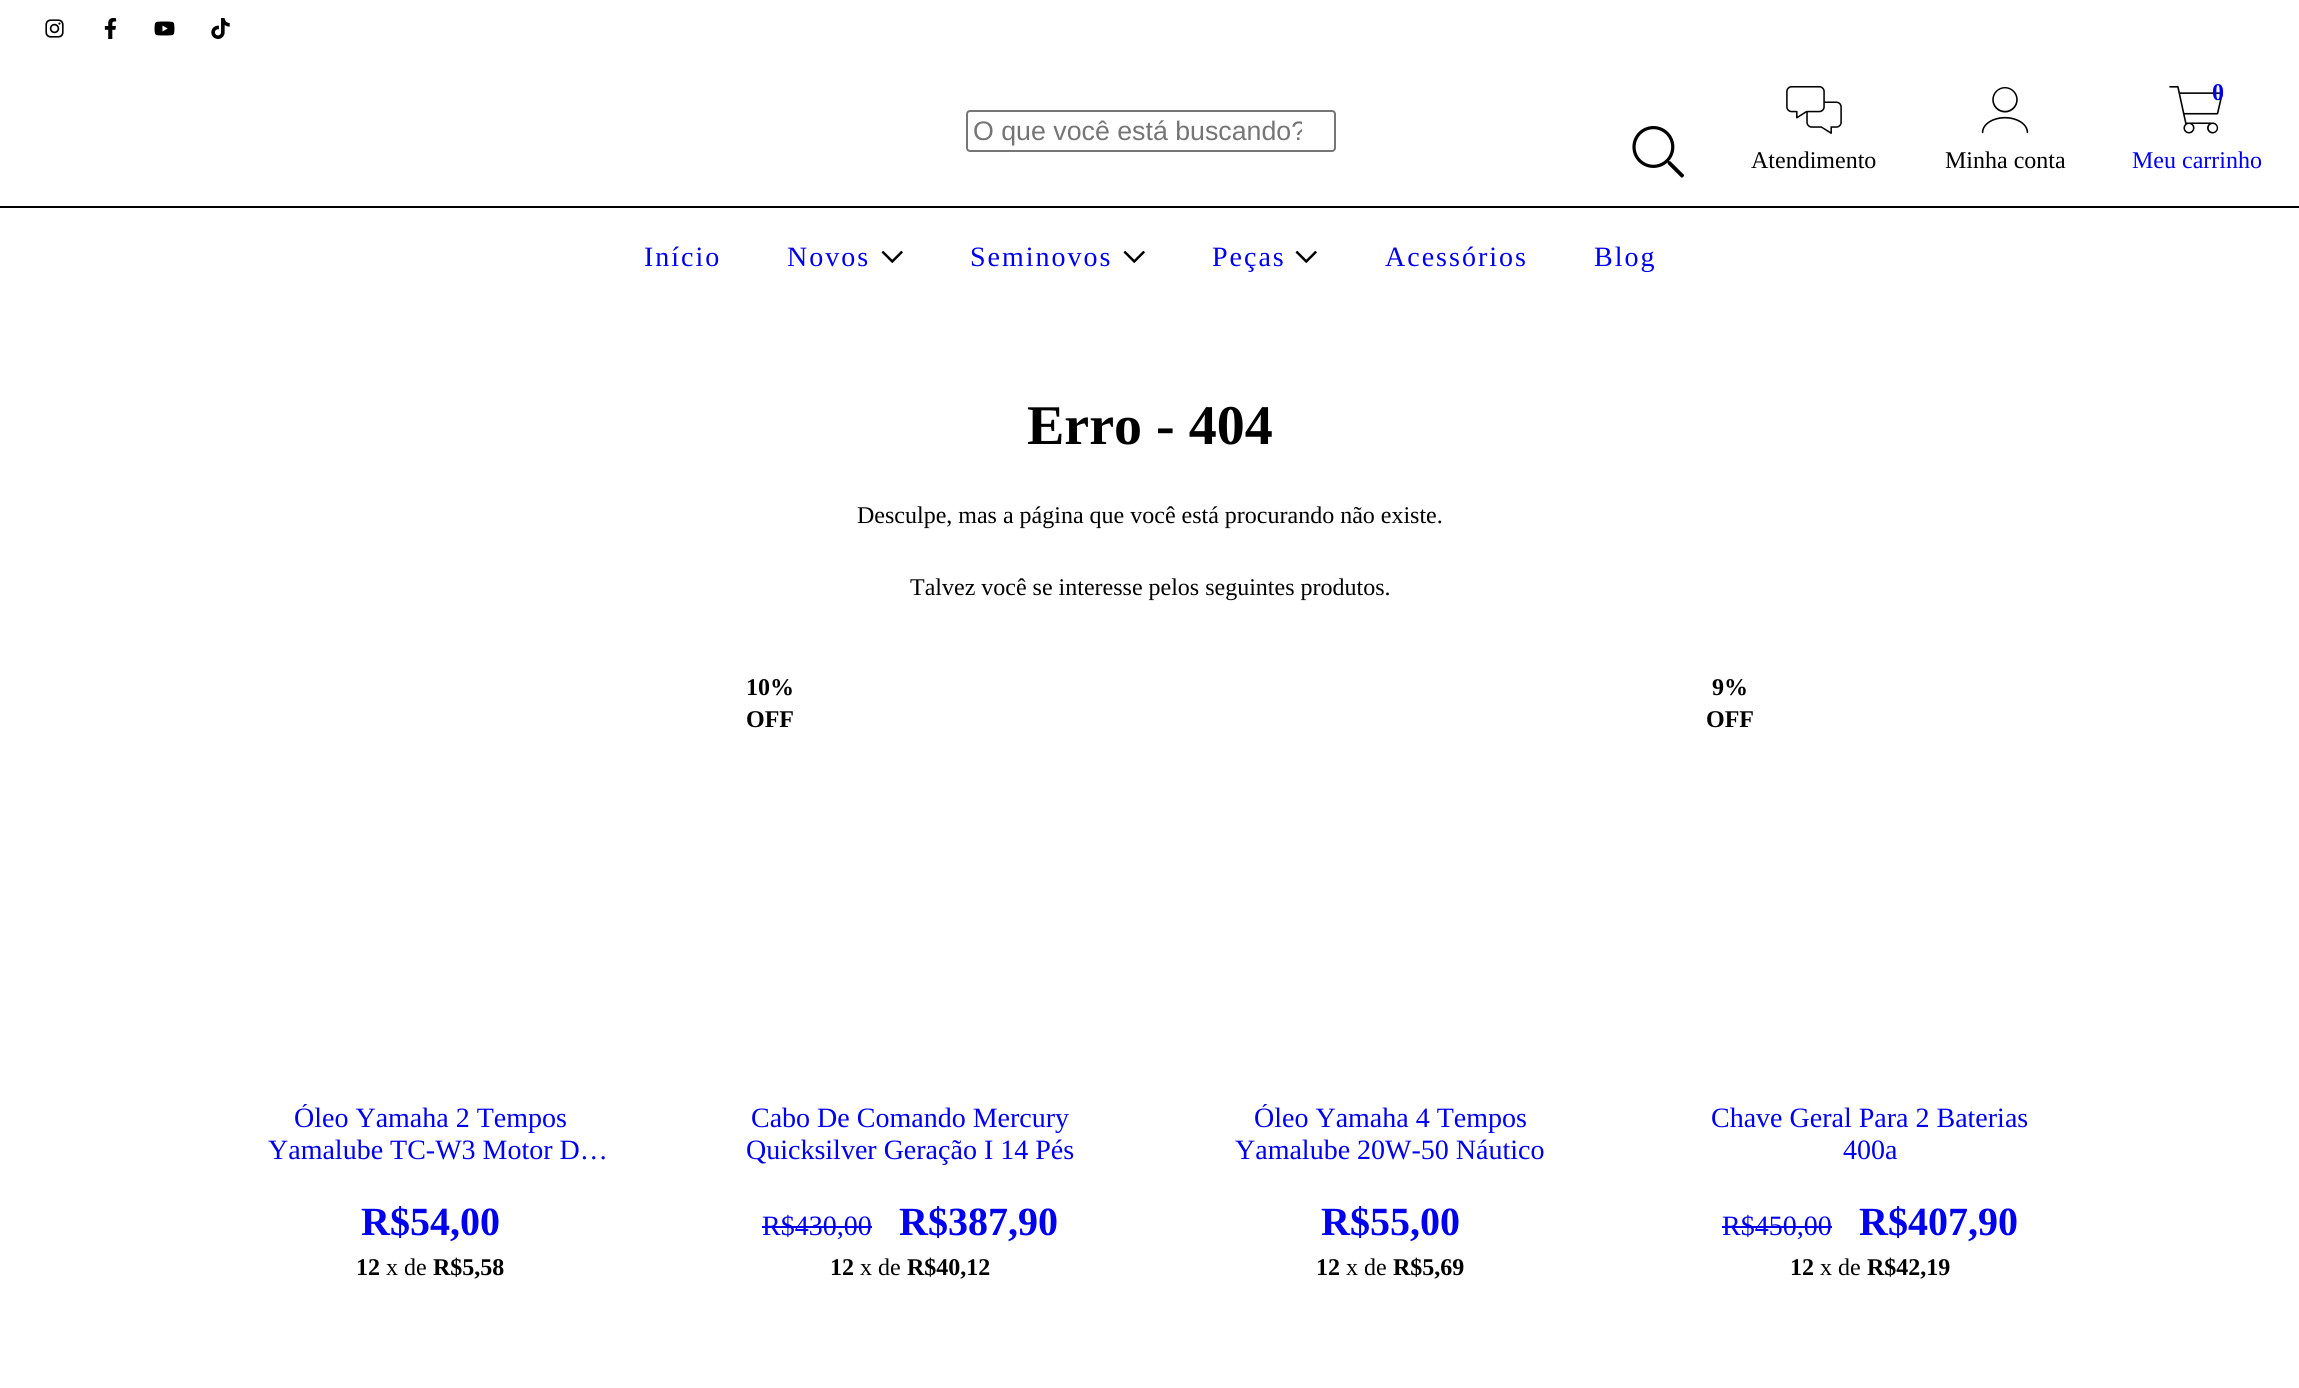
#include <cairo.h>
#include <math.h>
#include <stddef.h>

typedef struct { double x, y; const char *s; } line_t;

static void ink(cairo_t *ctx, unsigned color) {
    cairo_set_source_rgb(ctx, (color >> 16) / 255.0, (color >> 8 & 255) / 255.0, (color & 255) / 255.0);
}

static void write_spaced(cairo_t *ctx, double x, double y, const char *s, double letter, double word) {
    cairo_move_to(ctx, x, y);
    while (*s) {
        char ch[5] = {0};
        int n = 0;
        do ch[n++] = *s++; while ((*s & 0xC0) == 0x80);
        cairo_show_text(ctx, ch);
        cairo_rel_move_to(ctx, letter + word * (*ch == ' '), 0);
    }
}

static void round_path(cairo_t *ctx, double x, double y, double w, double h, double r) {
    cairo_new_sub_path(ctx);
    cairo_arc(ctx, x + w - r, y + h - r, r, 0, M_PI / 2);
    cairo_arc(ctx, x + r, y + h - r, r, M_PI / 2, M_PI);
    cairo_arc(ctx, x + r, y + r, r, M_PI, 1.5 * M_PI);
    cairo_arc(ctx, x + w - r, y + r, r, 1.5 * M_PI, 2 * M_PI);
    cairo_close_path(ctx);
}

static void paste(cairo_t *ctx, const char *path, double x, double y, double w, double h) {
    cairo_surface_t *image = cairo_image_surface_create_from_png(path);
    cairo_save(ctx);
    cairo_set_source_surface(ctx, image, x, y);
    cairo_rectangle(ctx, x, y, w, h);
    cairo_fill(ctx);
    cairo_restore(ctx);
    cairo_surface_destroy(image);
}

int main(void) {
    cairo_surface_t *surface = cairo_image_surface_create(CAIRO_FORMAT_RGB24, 2299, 1388);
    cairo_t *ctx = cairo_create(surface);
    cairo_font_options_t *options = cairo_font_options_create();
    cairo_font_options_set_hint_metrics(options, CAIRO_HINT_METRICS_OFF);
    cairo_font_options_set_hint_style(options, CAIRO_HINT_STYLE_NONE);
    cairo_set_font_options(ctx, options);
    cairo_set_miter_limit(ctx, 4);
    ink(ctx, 0xFFFFFF);
    cairo_paint(ctx);
    paste(ctx, "media/1.png", 45, 19, 19, 19);
    paste(ctx, "media/2.png", 104, 18, 13, 21);
    paste(ctx, "media/3.png", 154, 21, 21, 15);
    paste(ctx, "media/4.png", 211, 18, 19, 21);
    round_path(ctx, 967, 111, 368, 40, 3);
    ink(ctx, 0x767676);
    cairo_stroke(ctx);
    cairo_save(ctx);
    cairo_rectangle(ctx, 974, 116, 328, 30);
    cairo_clip(ctx);
    cairo_select_font_face(ctx, "Liberation Sans", CAIRO_FONT_SLANT_NORMAL, CAIRO_FONT_WEIGHT_NORMAL);
    cairo_set_font_size(ctx, 26.75);
    ink(ctx, 0x757575);
    cairo_move_to(ctx, 973, 140);
    cairo_show_text(ctx, "O que você está buscando?");
    cairo_restore(ctx);
    paste(ctx, "media/5.png", 1632, 126, 52, 52);
    paste(ctx, "media/6.png", 1786, 86, 56, 48);
    cairo_select_font_face(ctx, "Liberation Serif", CAIRO_FONT_SLANT_NORMAL, CAIRO_FONT_WEIGHT_NORMAL);
    cairo_set_font_size(ctx, 24);
    ink(ctx, 0x000000);
    cairo_move_to(ctx, 1751, 168);
    cairo_show_text(ctx, "Atendimento");
    paste(ctx, "media/7.png", 1981, 87, 48, 47);
    cairo_move_to(ctx, 1945, 168);
    cairo_show_text(ctx, "Minha conta");
    paste(ctx, "media/8.png", 2169, 86, 54, 48);
    cairo_select_font_face(ctx, "Liberation Serif", CAIRO_FONT_SLANT_NORMAL, CAIRO_FONT_WEIGHT_BOLD);
    ink(ctx, 0x0000EE);
    cairo_move_to(ctx, 2212, 100);
    cairo_show_text(ctx, "0");
    cairo_select_font_face(ctx, "Liberation Serif", CAIRO_FONT_SLANT_NORMAL, CAIRO_FONT_WEIGHT_NORMAL);
    cairo_move_to(ctx, 2132, 168);
    cairo_show_text(ctx, "Meu carrinho");
    ink(ctx, 0x000000);
    cairo_rectangle(ctx, 0, 206, 2299, 2);
    cairo_fill(ctx);
    cairo_set_font_size(ctx, 28);
    ink(ctx, 0x0000EE);
    write_spaced(ctx, 644, 266, "Início", 2, 0);
    write_spaced(ctx, 787, 266, "Novos", 2, 0);
    paste(ctx, "media/9.png", 881, 250, 22, 13);
    write_spaced(ctx, 970, 266, "Seminovos", 2, 0);
    paste(ctx, "media/9.png", 1123, 250, 22, 13);
    write_spaced(ctx, 1212, 266, "Peças", 2, 0);
    paste(ctx, "media/9.png", 1295, 250, 22, 13);
    write_spaced(ctx, 1385, 266, "Acessórios", 2, 0);
    write_spaced(ctx, 1594, 266, "Blog", 2, 0);
    cairo_select_font_face(ctx, "Liberation Serif", CAIRO_FONT_SLANT_NORMAL, CAIRO_FONT_WEIGHT_BOLD);
    cairo_set_font_size(ctx, 56);
    ink(ctx, 0x000000);
    cairo_move_to(ctx, 1027, 444);
    cairo_show_text(ctx, "Erro - 404");
    cairo_select_font_face(ctx, "Liberation Serif", CAIRO_FONT_SLANT_NORMAL, CAIRO_FONT_WEIGHT_NORMAL);
    cairo_set_font_size(ctx, 24);
    cairo_move_to(ctx, 857, 523);
    cairo_show_text(ctx, "Desculpe, mas a página que você está procurando não existe.");
    cairo_move_to(ctx, 910, 595);
    cairo_show_text(ctx, "Talvez você se interesse pelos seguintes produtos.");
    cairo_save(ctx);
    cairo_rectangle(ctx, 252, 1104, 356, 64);
    cairo_clip(ctx);
    cairo_set_font_size(ctx, 28);
    ink(ctx, 0x0000EE);
    cairo_move_to(ctx, 294, 1127);
    cairo_show_text(ctx, "Óleo Yamaha 2 Tempos");
    cairo_restore(ctx);
    cairo_set_font_size(ctx, 28);
    ink(ctx, 0x0000EE);
    cairo_move_to(ctx, 268, 1159);
    cairo_show_text(ctx, "Yamalube TC-W3 Motor D…");
    cairo_select_font_face(ctx, "Liberation Serif", CAIRO_FONT_SLANT_NORMAL, CAIRO_FONT_WEIGHT_BOLD);
    cairo_set_font_size(ctx, 40);
    cairo_move_to(ctx, 361, 1235);
    cairo_show_text(ctx, "R$54,00");
    cairo_set_font_size(ctx, 24);
    ink(ctx, 0x000000);
    cairo_move_to(ctx, 356, 1275);
    cairo_show_text(ctx, "12");
    cairo_select_font_face(ctx, "Liberation Serif", CAIRO_FONT_SLANT_NORMAL, CAIRO_FONT_WEIGHT_NORMAL);
    cairo_move_to(ctx, 386, 1275);
    cairo_show_text(ctx, "x de");
    cairo_select_font_face(ctx, "Liberation Serif", CAIRO_FONT_SLANT_NORMAL, CAIRO_FONT_WEIGHT_BOLD);
    {
        static const line_t items[] = {
            {433, 1275, "R$5,58"},
            {746, 695, "10%"},
            {746, 727, "OFF"},
        };
        for (size_t i = 0; i < sizeof items / sizeof *items; i++) {
            cairo_move_to(ctx, items[i].x, items[i].y);
            cairo_show_text(ctx, items[i].s);
        }
    }
    cairo_select_font_face(ctx, "Liberation Serif", CAIRO_FONT_SLANT_NORMAL, CAIRO_FONT_WEIGHT_NORMAL);
    cairo_set_font_size(ctx, 28);
    ink(ctx, 0x0000EE);
    {
        static const line_t items[] = {
            {751, 1127, "Cabo De Comando Mercury"},
            {746, 1159, "Quicksilver Geração I 14 Pés"},
            {762, 1235, "R$430,00"},
        };
        for (size_t i = 0; i < sizeof items / sizeof *items; i++) {
            cairo_move_to(ctx, items[i].x, items[i].y);
            cairo_show_text(ctx, items[i].s);
        }
    }
    cairo_rectangle(ctx, 762, 1226, 110, 2);
    cairo_fill(ctx);
    cairo_select_font_face(ctx, "Liberation Serif", CAIRO_FONT_SLANT_NORMAL, CAIRO_FONT_WEIGHT_BOLD);
    cairo_set_font_size(ctx, 40);
    cairo_move_to(ctx, 899, 1235);
    cairo_show_text(ctx, "R$387,90");
    cairo_set_font_size(ctx, 24);
    ink(ctx, 0x000000);
    cairo_move_to(ctx, 830, 1275);
    cairo_show_text(ctx, "12");
    cairo_select_font_face(ctx, "Liberation Serif", CAIRO_FONT_SLANT_NORMAL, CAIRO_FONT_WEIGHT_NORMAL);
    cairo_move_to(ctx, 860, 1275);
    cairo_show_text(ctx, "x de");
    cairo_select_font_face(ctx, "Liberation Serif", CAIRO_FONT_SLANT_NORMAL, CAIRO_FONT_WEIGHT_BOLD);
    cairo_move_to(ctx, 907, 1275);
    cairo_show_text(ctx, "R$40,12");
    cairo_save(ctx);
    cairo_rectangle(ctx, 1212, 1104, 356, 64);
    cairo_clip(ctx);
    cairo_select_font_face(ctx, "Liberation Serif", CAIRO_FONT_SLANT_NORMAL, CAIRO_FONT_WEIGHT_NORMAL);
    cairo_set_font_size(ctx, 28);
    ink(ctx, 0x0000EE);
    cairo_move_to(ctx, 1254, 1127);
    cairo_show_text(ctx, "Óleo Yamaha 4 Tempos");
    cairo_restore(ctx);
    cairo_select_font_face(ctx, "Liberation Serif", CAIRO_FONT_SLANT_NORMAL, CAIRO_FONT_WEIGHT_NORMAL);
    cairo_set_font_size(ctx, 28);
    ink(ctx, 0x0000EE);
    cairo_move_to(ctx, 1235, 1159);
    cairo_show_text(ctx, "Yamalube 20W-50 Náutico");
    cairo_select_font_face(ctx, "Liberation Serif", CAIRO_FONT_SLANT_NORMAL, CAIRO_FONT_WEIGHT_BOLD);
    cairo_set_font_size(ctx, 40);
    cairo_move_to(ctx, 1321, 1235);
    cairo_show_text(ctx, "R$55,00");
    cairo_set_font_size(ctx, 24);
    ink(ctx, 0x000000);
    cairo_move_to(ctx, 1316, 1275);
    cairo_show_text(ctx, "12");
    cairo_select_font_face(ctx, "Liberation Serif", CAIRO_FONT_SLANT_NORMAL, CAIRO_FONT_WEIGHT_NORMAL);
    cairo_move_to(ctx, 1346, 1275);
    cairo_show_text(ctx, "x de");
    cairo_select_font_face(ctx, "Liberation Serif", CAIRO_FONT_SLANT_NORMAL, CAIRO_FONT_WEIGHT_BOLD);
    {
        static const line_t items[] = {
            {1393, 1275, "R$5,69"},
            {1712, 695, "9%"},
            {1706, 727, "OFF"},
        };
        for (size_t i = 0; i < sizeof items / sizeof *items; i++) {
            cairo_move_to(ctx, items[i].x, items[i].y);
            cairo_show_text(ctx, items[i].s);
        }
    }
    cairo_select_font_face(ctx, "Liberation Serif", CAIRO_FONT_SLANT_NORMAL, CAIRO_FONT_WEIGHT_NORMAL);
    cairo_set_font_size(ctx, 28);
    ink(ctx, 0x0000EE);
    {
        static const line_t items[] = {
            {1711, 1127, "Chave Geral Para 2 Baterias"},
            {1843, 1159, "400a"},
            {1722, 1235, "R$450,00"},
        };
        for (size_t i = 0; i < sizeof items / sizeof *items; i++) {
            cairo_move_to(ctx, items[i].x, items[i].y);
            cairo_show_text(ctx, items[i].s);
        }
    }
    cairo_rectangle(ctx, 1722, 1226, 110, 2);
    cairo_fill(ctx);
    cairo_select_font_face(ctx, "Liberation Serif", CAIRO_FONT_SLANT_NORMAL, CAIRO_FONT_WEIGHT_BOLD);
    cairo_set_font_size(ctx, 40);
    cairo_move_to(ctx, 1859, 1235);
    cairo_show_text(ctx, "R$407,90");
    cairo_set_font_size(ctx, 24);
    ink(ctx, 0x000000);
    cairo_move_to(ctx, 1790, 1275);
    cairo_show_text(ctx, "12");
    cairo_select_font_face(ctx, "Liberation Serif", CAIRO_FONT_SLANT_NORMAL, CAIRO_FONT_WEIGHT_NORMAL);
    cairo_move_to(ctx, 1820, 1275);
    cairo_show_text(ctx, "x de");
    cairo_select_font_face(ctx, "Liberation Serif", CAIRO_FONT_SLANT_NORMAL, CAIRO_FONT_WEIGHT_BOLD);
    cairo_move_to(ctx, 1867, 1275);
    cairo_show_text(ctx, "R$42,19");
    cairo_surface_write_to_png(surface, "image.png");
    cairo_font_options_destroy(options);
    cairo_destroy(ctx);
    cairo_surface_destroy(surface);
    return 0;
}
